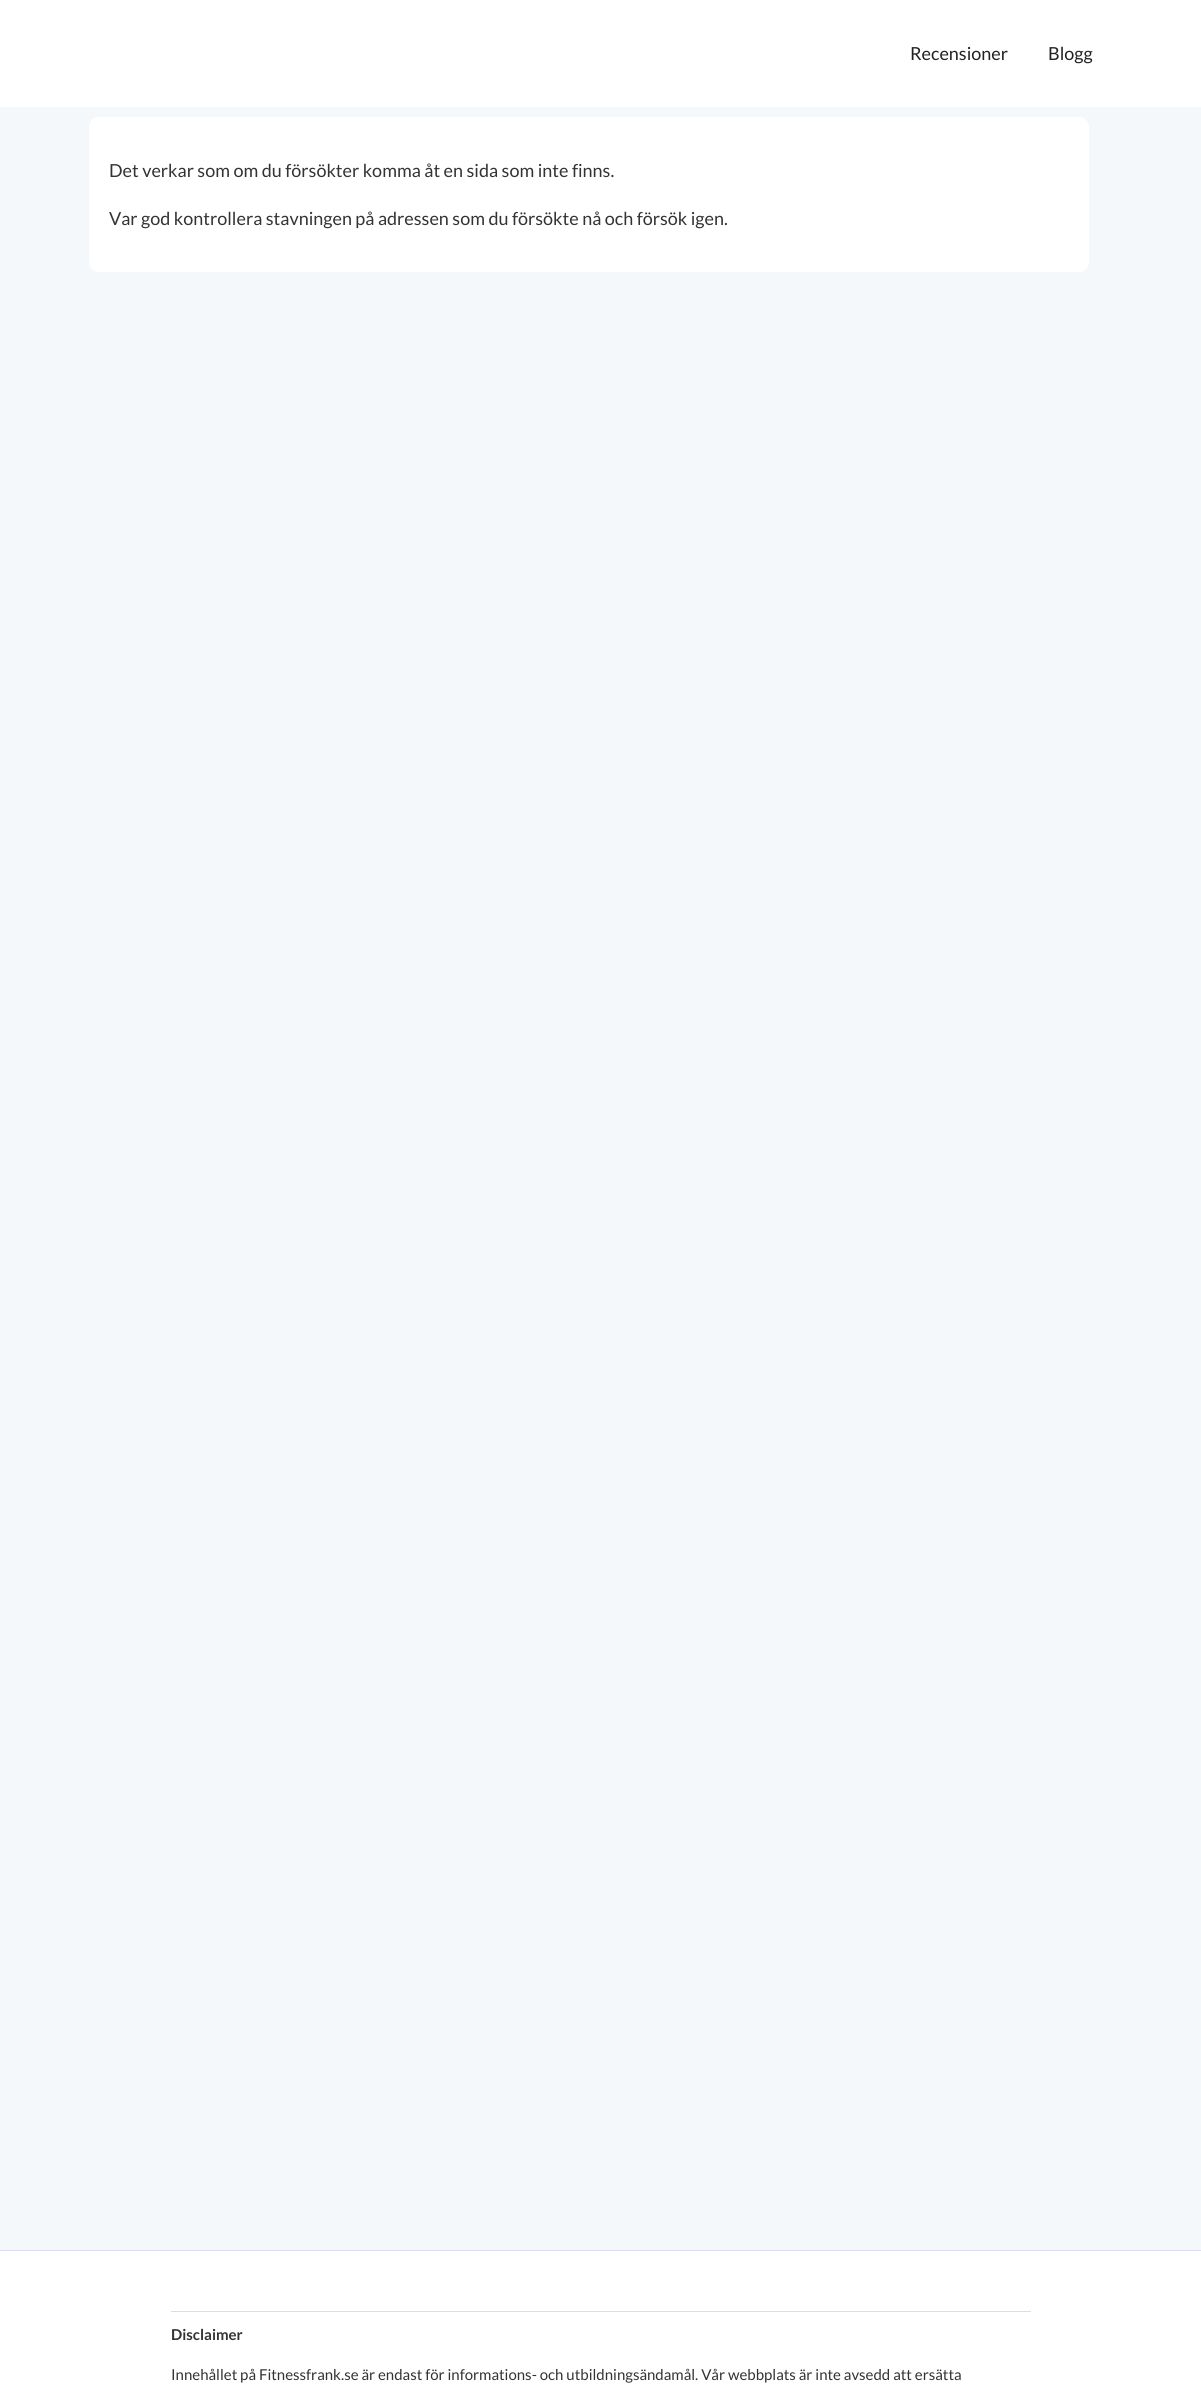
#include <cairo.h>
#include <math.h>
#include <stddef.h>

typedef struct { double x, y, w, h; unsigned color; } box_t;

static void ink(cairo_t *ctx, unsigned color) {
    cairo_set_source_rgb(ctx, (color >> 16) / 255.0, (color >> 8 & 255) / 255.0, (color & 255) / 255.0);
}

static void round_path(cairo_t *ctx, double x, double y, double w, double h, double r) {
    cairo_new_sub_path(ctx);
    cairo_arc(ctx, x + w - r, y + h - r, r, 0, M_PI / 2);
    cairo_arc(ctx, x + r, y + h - r, r, M_PI / 2, M_PI);
    cairo_arc(ctx, x + r, y + r, r, M_PI, 1.5 * M_PI);
    cairo_arc(ctx, x + w - r, y + r, r, 1.5 * M_PI, 2 * M_PI);
    cairo_close_path(ctx);
}

int main(void) {
    cairo_surface_t *surface = cairo_image_surface_create(CAIRO_FORMAT_RGB24, 1201, 2394);
    cairo_t *ctx = cairo_create(surface);
    cairo_font_options_t *options = cairo_font_options_create();
    cairo_font_options_set_hint_metrics(options, CAIRO_HINT_METRICS_OFF);
    cairo_font_options_set_hint_style(options, CAIRO_HINT_STYLE_NONE);
    cairo_set_font_options(ctx, options);
    cairo_set_miter_limit(ctx, 4);
    ink(ctx, 0xF5F8FB);
    cairo_paint(ctx);
    ink(ctx, 0xFFFFFF);
    cairo_rectangle(ctx, 0, 0, 1201, 107);
    cairo_fill(ctx);
    cairo_select_font_face(ctx, "Lato", CAIRO_FONT_SLANT_NORMAL, CAIRO_FONT_WEIGHT_NORMAL);
    cairo_set_font_size(ctx, 18);
    ink(ctx, 0x222222);
    cairo_move_to(ctx, 910, 60);
    cairo_show_text(ctx, "Recensioner");
    cairo_move_to(ctx, 1048, 60);
    cairo_show_text(ctx, "Blogg");
    ink(ctx, 0xFFFFFF);
    round_path(ctx, 89, 117, 1000, 155, 10);
    cairo_fill(ctx);
    ink(ctx, 0x333333);
    cairo_move_to(ctx, 109, 177);
    cairo_show_text(ctx, "Det verkar som om du försökter komma åt en sida som inte finns.");
    cairo_move_to(ctx, 109, 225);
    cairo_show_text(ctx, "Var god kontrollera stavningen på adressen som du försökte nå och försök igen.");
    {
        static const box_t items[] = {
            {0, 2251, 1201, 143, 0xFFFFFF},
            {0, 2250, 1201, 1, 0xDADEEF},
            {171, 2311, 860, 1, 0xDDDDDD},
        };
        for (size_t i = 0; i < sizeof items / sizeof *items; i++) {
            ink(ctx, items[i].color);
            cairo_rectangle(ctx, items[i].x, items[i].y, items[i].w, items[i].h);
            cairo_fill(ctx);
        }
    }
    cairo_select_font_face(ctx, "Lato", CAIRO_FONT_SLANT_NORMAL, CAIRO_FONT_WEIGHT_BOLD);
    cairo_set_font_size(ctx, 15);
    ink(ctx, 0x333333);
    cairo_move_to(ctx, 171, 2340);
    cairo_show_text(ctx, "Disclaimer");
    cairo_select_font_face(ctx, "Lato", CAIRO_FONT_SLANT_NORMAL, CAIRO_FONT_WEIGHT_NORMAL);
    cairo_move_to(ctx, 171, 2380);
    cairo_show_text(ctx, "Innehållet på Fitnessfrank.se är endast för informations- och utbildningsändamål. Vår webbplats är inte avsedd att ersätta");
    cairo_surface_write_to_png(surface, "image.png");
    cairo_font_options_destroy(options);
    cairo_destroy(ctx);
    cairo_surface_destroy(surface);
    return 0;
}
